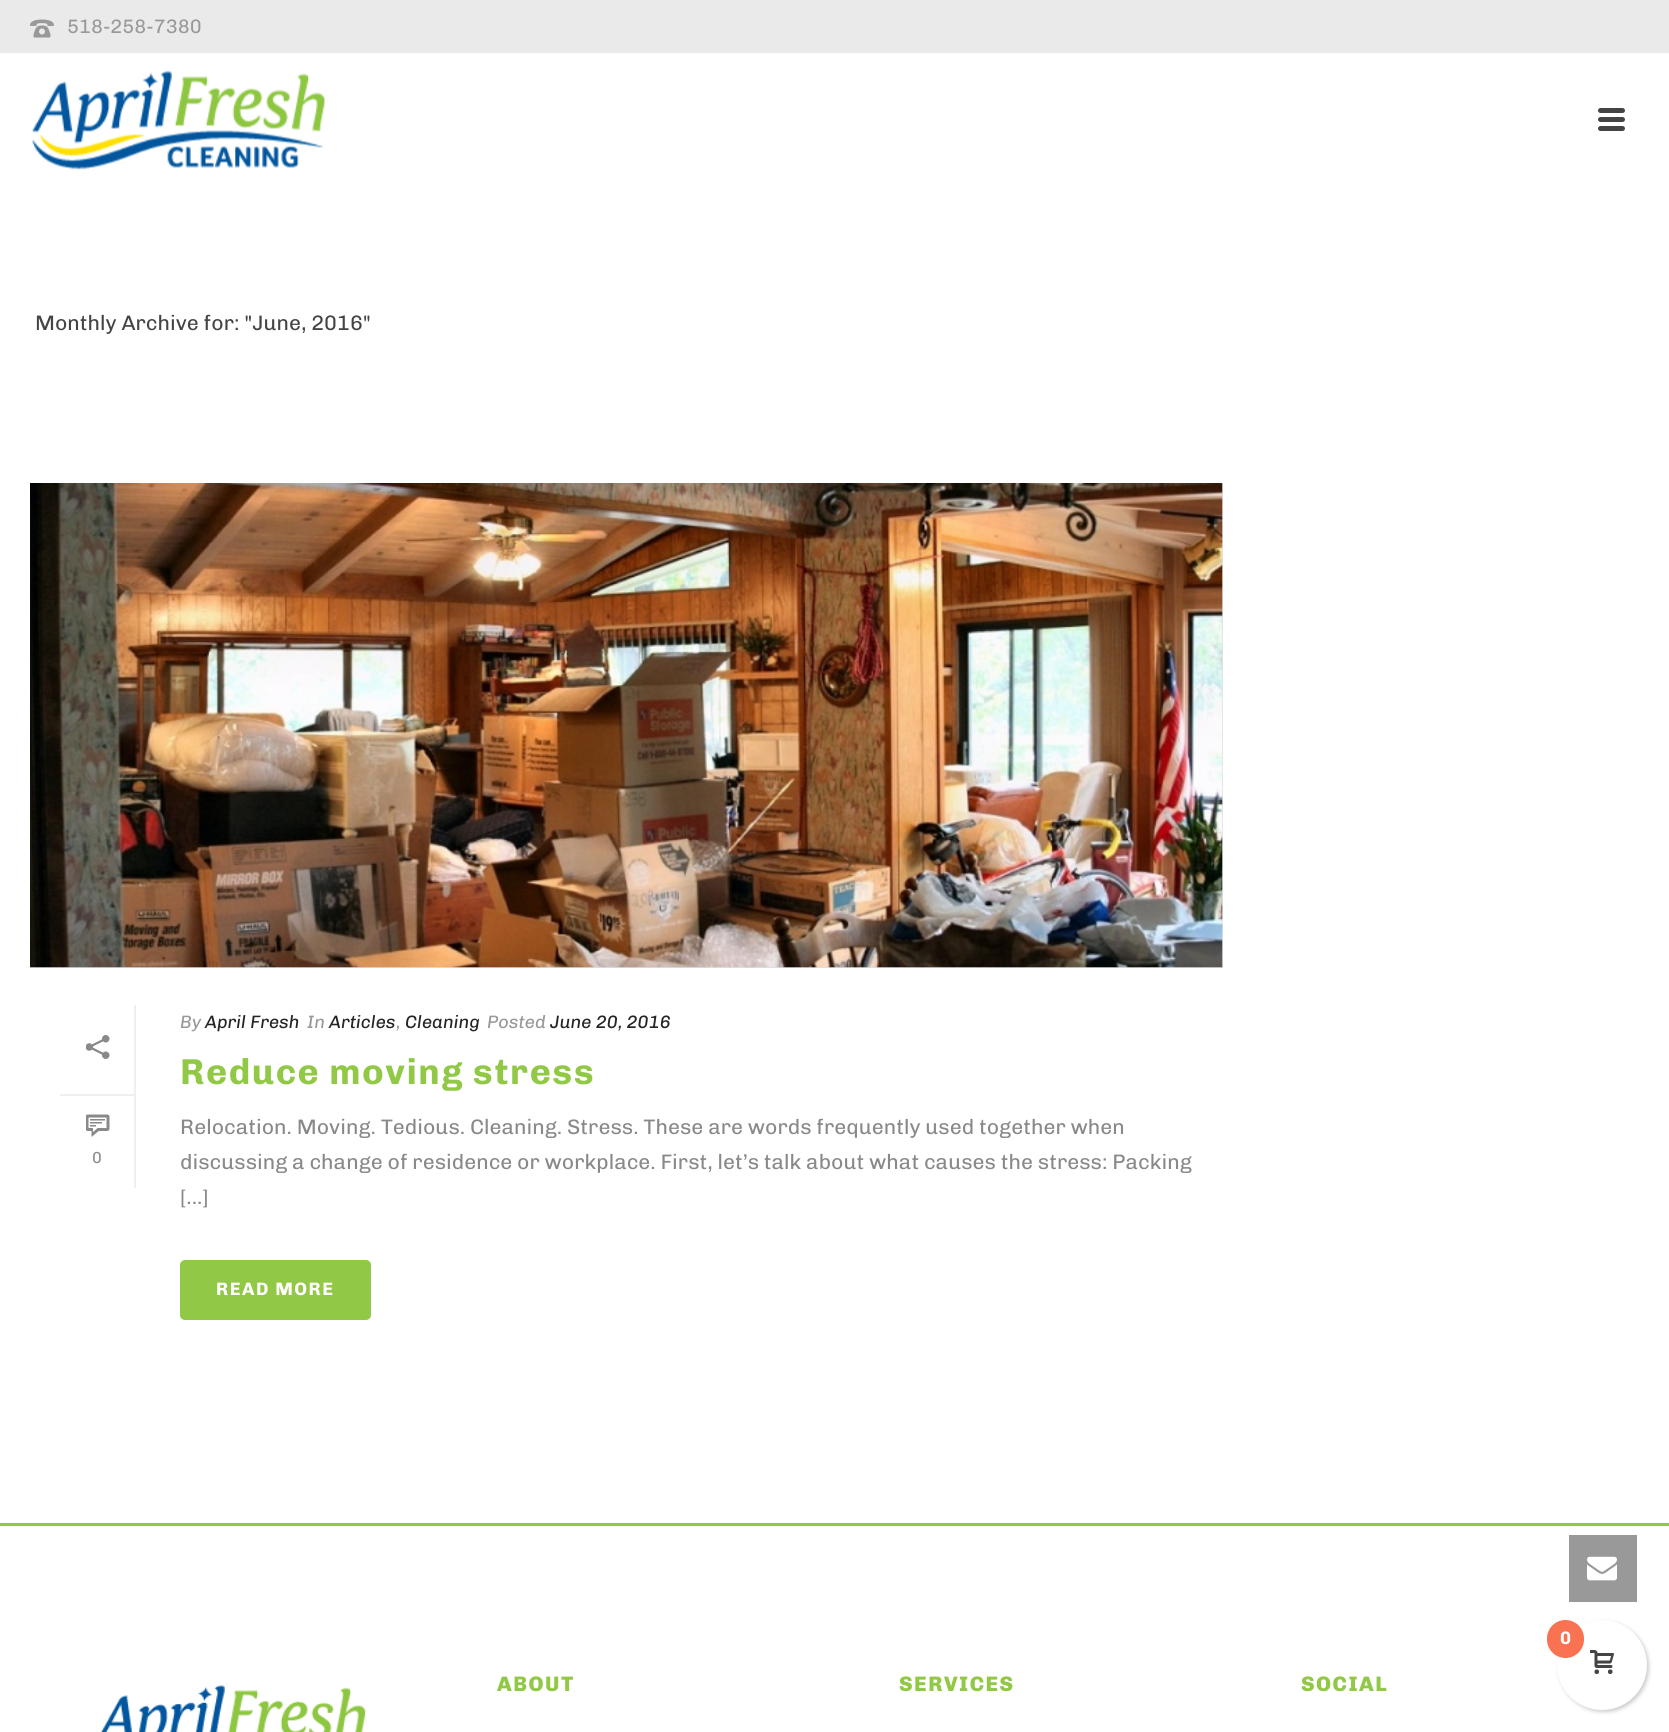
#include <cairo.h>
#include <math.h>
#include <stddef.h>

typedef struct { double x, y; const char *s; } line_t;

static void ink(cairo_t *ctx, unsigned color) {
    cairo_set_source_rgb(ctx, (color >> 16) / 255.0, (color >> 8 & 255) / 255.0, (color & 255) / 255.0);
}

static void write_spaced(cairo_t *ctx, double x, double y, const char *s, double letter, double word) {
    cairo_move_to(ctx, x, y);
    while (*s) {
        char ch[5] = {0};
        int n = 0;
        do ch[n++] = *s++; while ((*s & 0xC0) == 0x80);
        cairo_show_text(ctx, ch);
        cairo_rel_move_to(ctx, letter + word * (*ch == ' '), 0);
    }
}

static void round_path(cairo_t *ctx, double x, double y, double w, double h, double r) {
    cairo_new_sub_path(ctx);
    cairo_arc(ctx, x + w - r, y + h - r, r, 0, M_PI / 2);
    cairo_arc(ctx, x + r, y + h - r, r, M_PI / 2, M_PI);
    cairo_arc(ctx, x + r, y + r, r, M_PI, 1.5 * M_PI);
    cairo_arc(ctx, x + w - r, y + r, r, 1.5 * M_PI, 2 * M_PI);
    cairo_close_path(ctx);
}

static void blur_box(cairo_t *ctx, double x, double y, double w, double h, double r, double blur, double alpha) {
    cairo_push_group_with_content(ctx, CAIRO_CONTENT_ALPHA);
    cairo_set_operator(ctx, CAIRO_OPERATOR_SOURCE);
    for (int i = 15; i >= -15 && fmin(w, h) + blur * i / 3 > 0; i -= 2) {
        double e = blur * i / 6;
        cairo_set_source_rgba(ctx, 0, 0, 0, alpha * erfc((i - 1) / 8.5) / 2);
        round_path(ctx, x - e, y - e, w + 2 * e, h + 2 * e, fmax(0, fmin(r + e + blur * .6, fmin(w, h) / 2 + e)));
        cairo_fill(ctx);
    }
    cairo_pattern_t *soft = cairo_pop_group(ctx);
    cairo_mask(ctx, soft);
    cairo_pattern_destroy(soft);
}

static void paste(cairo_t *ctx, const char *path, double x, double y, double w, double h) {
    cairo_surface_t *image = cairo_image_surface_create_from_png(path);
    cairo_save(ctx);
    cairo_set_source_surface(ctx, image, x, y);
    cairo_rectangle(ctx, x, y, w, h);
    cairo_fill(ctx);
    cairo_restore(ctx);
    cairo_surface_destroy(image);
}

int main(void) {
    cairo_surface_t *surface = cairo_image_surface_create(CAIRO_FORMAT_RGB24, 1669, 1732);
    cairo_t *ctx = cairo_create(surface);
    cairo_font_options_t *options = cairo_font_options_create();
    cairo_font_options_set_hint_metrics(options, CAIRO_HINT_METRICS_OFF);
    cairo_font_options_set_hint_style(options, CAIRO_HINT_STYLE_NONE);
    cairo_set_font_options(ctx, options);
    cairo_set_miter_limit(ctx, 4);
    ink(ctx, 0xFFFFFF);
    cairo_paint(ctx);
    ink(ctx, 0xEAEAEA);
    cairo_rectangle(ctx, 0, 0, 1669, 53);
    cairo_fill(ctx);
    paste(ctx, "media/1.png", 30, 19, 24, 19);
    cairo_select_font_face(ctx, "Chivo", CAIRO_FONT_SLANT_NORMAL, CAIRO_FONT_WEIGHT_NORMAL);
    cairo_set_font_size(ctx, 19.5);
    ink(ctx, 0x999999);
    cairo_move_to(ctx, 67, 33);
    cairo_show_text(ctx, "518-258-7380");
    paste(ctx, "media/2.png", 32, 70, 293, 100);
    ink(ctx, 0x444444);
    round_path(ctx, 1598, 108, 27, 5, 2.5);
    cairo_fill(ctx);
    round_path(ctx, 1598, 117, 27, 5, 2.5);
    cairo_fill(ctx);
    round_path(ctx, 1598, 126, 27, 5, 2.5);
    cairo_fill(ctx);
    cairo_set_font_size(ctx, 21);
    cairo_move_to(ctx, 35, 330);
    cairo_show_text(ctx, "Monthly Archive for: \"June, 2016\"");
    ink(ctx, 0xE0E0E0);
    cairo_rectangle(ctx, 30, 483, 1193, 485);
    cairo_fill(ctx);
    paste(ctx, "media/3.png", 30, 483, 1193, 485);
    ink(ctx, 0xEFEFEF);
    cairo_rectangle(ctx, 134, 1005, 2, 183);
    cairo_fill(ctx);
    cairo_rectangle(ctx, 60, 1094, 74, 2);
    cairo_fill(ctx);
    paste(ctx, "media/4.png", 86, 1035, 24, 24);
    paste(ctx, "media/5.png", 86, 1114, 24, 23);
    cairo_set_font_size(ctx, 16);
    ink(ctx, 0x898989);
    cairo_move_to(ctx, 92, 1163);
    cairo_show_text(ctx, "0");
    cairo_select_font_face(ctx, "Chivo", CAIRO_FONT_SLANT_ITALIC, CAIRO_FONT_WEIGHT_NORMAL);
    cairo_set_font_size(ctx, 18);
    ink(ctx, 0x999999);
    cairo_move_to(ctx, 180, 1028);
    cairo_show_text(ctx, "By");
    ink(ctx, 0x252525);
    cairo_move_to(ctx, 205, 1028);
    cairo_show_text(ctx, "April Fresh");
    ink(ctx, 0x999999);
    cairo_move_to(ctx, 307, 1028);
    cairo_show_text(ctx, "In");
    ink(ctx, 0x252525);
    cairo_move_to(ctx, 329, 1028);
    cairo_show_text(ctx, "Articles");
    ink(ctx, 0x999999);
    cairo_move_to(ctx, 396, 1028);
    cairo_show_text(ctx, ",");
    ink(ctx, 0x252525);
    cairo_move_to(ctx, 405, 1028);
    cairo_show_text(ctx, "Cleaning");
    ink(ctx, 0x999999);
    cairo_move_to(ctx, 487, 1028);
    cairo_show_text(ctx, "Posted");
    ink(ctx, 0x252525);
    cairo_move_to(ctx, 550, 1028);
    cairo_show_text(ctx, "June 20, 2016");
    cairo_select_font_face(ctx, "Chivo", CAIRO_FONT_SLANT_NORMAL, CAIRO_FONT_WEIGHT_BOLD);
    cairo_set_font_size(ctx, 36);
    ink(ctx, 0x91C946);
    write_spaced(ctx, 180, 1084, "Reduce moving stress", 1.5, 0);
    cairo_select_font_face(ctx, "Chivo", CAIRO_FONT_SLANT_NORMAL, CAIRO_FONT_WEIGHT_NORMAL);
    cairo_set_font_size(ctx, 21);
    ink(ctx, 0x898989);
    {
        static const line_t items[] = {
            {180, 1134, "Relocation. Moving. Tedious. Cleaning. Stress. These are words frequently used together when"},
            {180, 1169, "discussing a change of residence or workplace. First, let’s talk about what causes the stress: Packing"},
            {180, 1204, "[...]"},
        };
        for (size_t i = 0; i < sizeof items / sizeof *items; i++) {
            cairo_move_to(ctx, items[i].x, items[i].y);
            cairo_show_text(ctx, items[i].s);
        }
    }
    ink(ctx, 0x91C946);
    round_path(ctx, 180, 1260, 191, 60, 5);
    cairo_fill(ctx);
    cairo_select_font_face(ctx, "Chivo", CAIRO_FONT_SLANT_NORMAL, CAIRO_FONT_WEIGHT_BOLD);
    cairo_set_font_size(ctx, 18);
    ink(ctx, 0xFFFFFF);
    write_spaced(ctx, 216, 1295, "READ MORE", 1.5, 0);
    ink(ctx, 0x91C946);
    cairo_rectangle(ctx, 0, 1523, 1669, 3);
    cairo_fill(ctx);
    paste(ctx, "media/6.png", 100, 1685, 266, 47);
    cairo_select_font_face(ctx, "Chivo ExtraBold", CAIRO_FONT_SLANT_NORMAL, CAIRO_FONT_WEIGHT_NORMAL);
    cairo_set_font_size(ctx, 21);
    {
        static const line_t items[] = {
            {497, 1691, "ABOUT"},
            {899, 1691, "SERVICES"},
            {1301, 1691, "SOCIAL"},
        };
        for (size_t i = 0; i < sizeof items / sizeof *items; i++) {
            write_spaced(ctx, items[i].x, items[i].y, items[i].s, 1.5, 0);
        }
    }
    ink(ctx, 0x999999);
    cairo_rectangle(ctx, 1569, 1535, 68, 67);
    cairo_fill(ctx);
    paste(ctx, "media/7.png", 1587, 1556, 30, 25);
    ink(ctx, 0x000000);
    blur_box(ctx, 1559, 1622, 90, 90, 45, 2, 0.2);
    ink(ctx, 0xFFFFFF);
    cairo_arc(ctx, 1602, 1665, 45, 0, 2 * M_PI);
    cairo_fill(ctx);
    ink(ctx, 0xF97352);
    round_path(ctx, 1547, 1620, 37, 38, 18.5);
    cairo_fill(ctx);
    cairo_select_font_face(ctx, "Chivo", CAIRO_FONT_SLANT_NORMAL, CAIRO_FONT_WEIGHT_BOLD);
    cairo_set_font_size(ctx, 18);
    ink(ctx, 0xFFFFFF);
    cairo_move_to(ctx, 1560, 1644);
    cairo_show_text(ctx, "0");
    paste(ctx, "media/8.png", 1590, 1650, 24, 24);
    cairo_surface_write_to_png(surface, "image.png");
    cairo_font_options_destroy(options);
    cairo_destroy(ctx);
    cairo_surface_destroy(surface);
    return 0;
}
